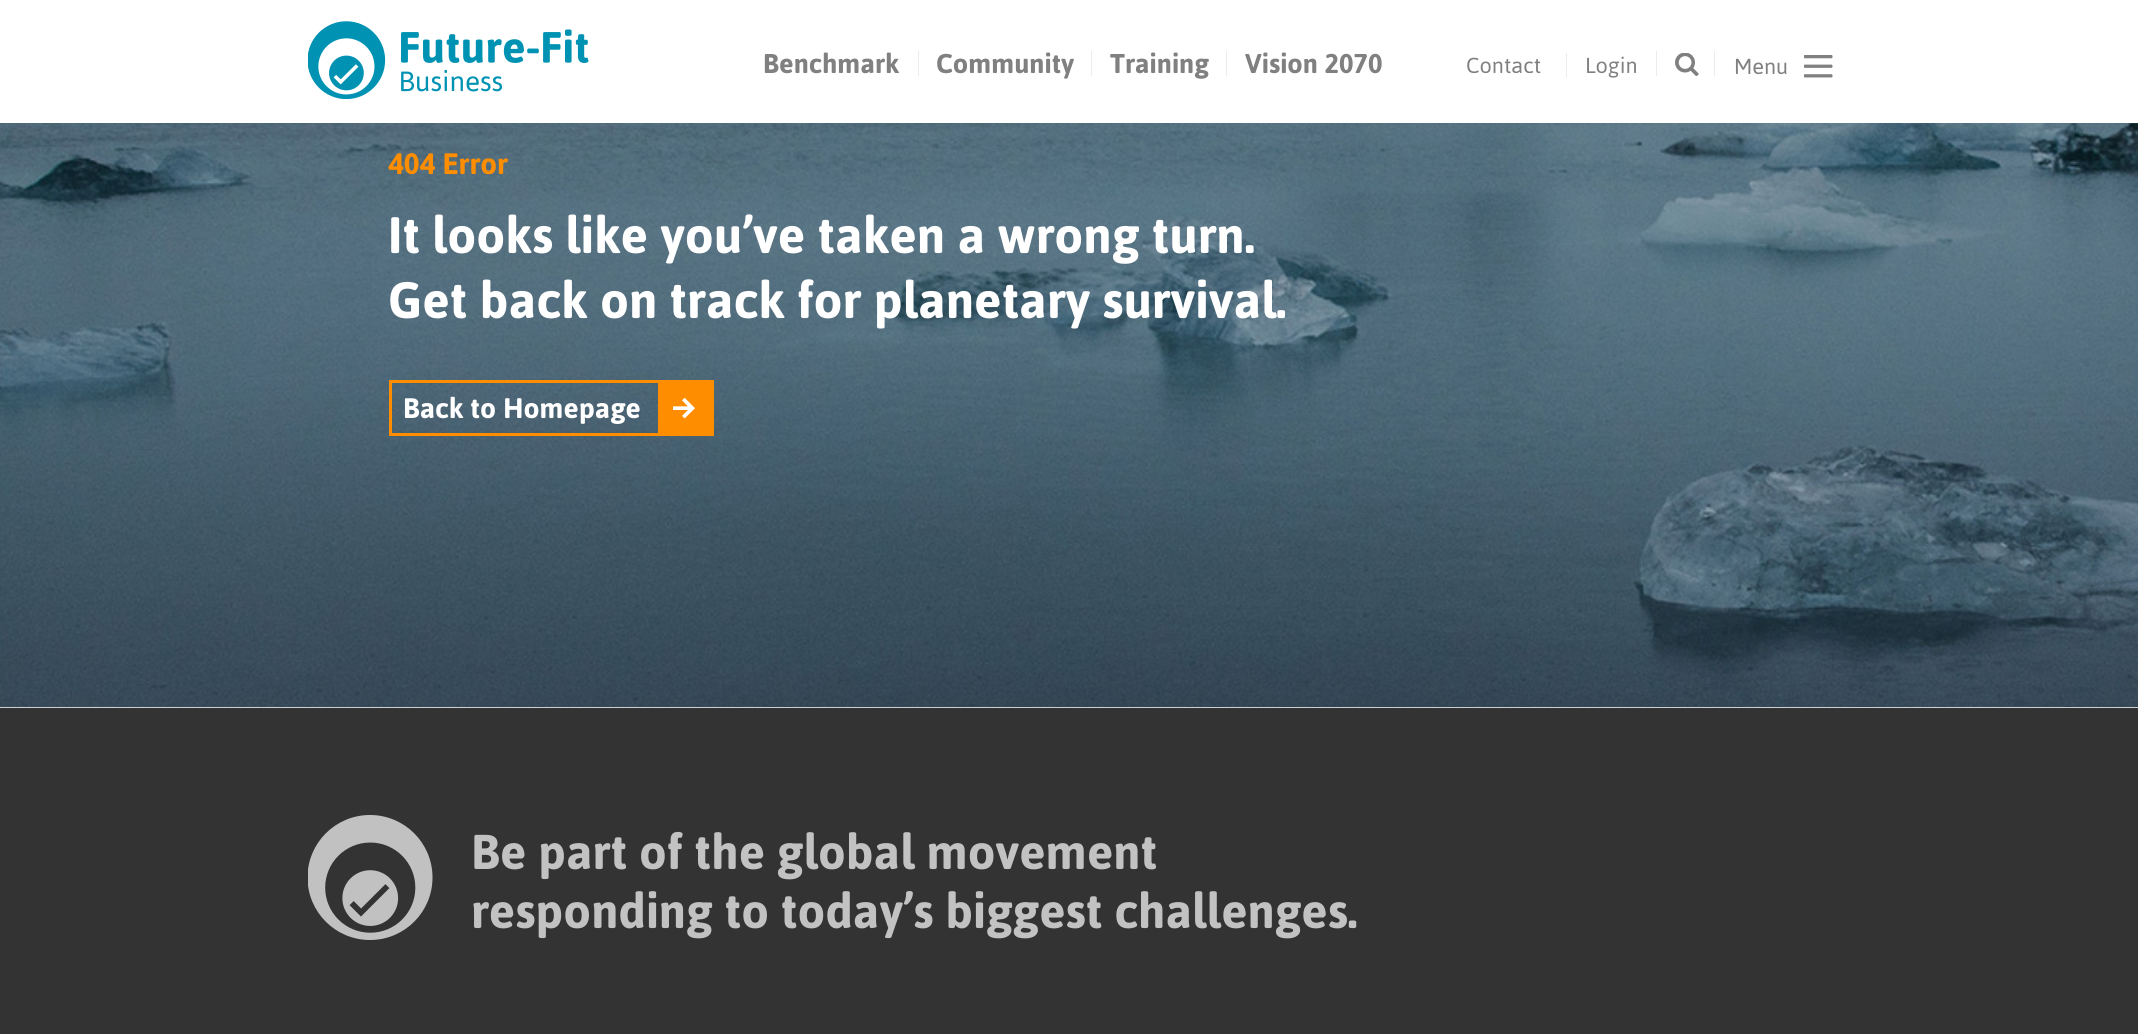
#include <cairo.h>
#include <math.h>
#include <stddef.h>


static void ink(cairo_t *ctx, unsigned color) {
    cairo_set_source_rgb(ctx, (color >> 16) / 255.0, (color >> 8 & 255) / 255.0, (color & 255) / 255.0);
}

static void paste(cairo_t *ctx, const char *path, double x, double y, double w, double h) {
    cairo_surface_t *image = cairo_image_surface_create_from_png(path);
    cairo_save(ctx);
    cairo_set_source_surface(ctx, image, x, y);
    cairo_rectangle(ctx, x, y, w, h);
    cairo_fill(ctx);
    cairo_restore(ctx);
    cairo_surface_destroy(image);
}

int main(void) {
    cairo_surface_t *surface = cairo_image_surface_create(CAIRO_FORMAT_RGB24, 2138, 1034);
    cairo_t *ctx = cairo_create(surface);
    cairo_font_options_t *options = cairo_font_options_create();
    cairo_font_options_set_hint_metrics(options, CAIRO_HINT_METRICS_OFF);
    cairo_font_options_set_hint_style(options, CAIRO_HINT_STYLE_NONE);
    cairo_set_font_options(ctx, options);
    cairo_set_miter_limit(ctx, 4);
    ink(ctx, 0xFFFFFF);
    cairo_paint(ctx);
    paste(ctx, "media/1.png", 308, 21, 281, 78);
    cairo_select_font_face(ctx, "Jaldi", CAIRO_FONT_SLANT_NORMAL, CAIRO_FONT_WEIGHT_BOLD);
    cairo_set_font_size(ctx, 31.25);
    ink(ctx, 0x808080);
    cairo_move_to(ctx, 763, 73);
    cairo_show_text(ctx, "Benchmark");
    ink(ctx, 0xECECEC);
    cairo_rectangle(ctx, 918, 51, 1, 25);
    cairo_fill(ctx);
    ink(ctx, 0x808080);
    cairo_move_to(ctx, 936, 73);
    cairo_show_text(ctx, "Community");
    ink(ctx, 0xECECEC);
    cairo_rectangle(ctx, 1091, 51, 1, 25);
    cairo_fill(ctx);
    ink(ctx, 0x808080);
    cairo_move_to(ctx, 1110, 73);
    cairo_show_text(ctx, "Training");
    ink(ctx, 0xECECEC);
    cairo_rectangle(ctx, 1226, 51, 1, 25);
    cairo_fill(ctx);
    ink(ctx, 0x808080);
    cairo_move_to(ctx, 1245, 73);
    cairo_show_text(ctx, "Vision 2070");
    cairo_select_font_face(ctx, "Jaldi", CAIRO_FONT_SLANT_NORMAL, CAIRO_FONT_WEIGHT_NORMAL);
    cairo_set_font_size(ctx, 25);
    cairo_move_to(ctx, 1466, 73);
    cairo_show_text(ctx, "Contact");
    ink(ctx, 0xECECEC);
    cairo_rectangle(ctx, 1566, 53, 1, 25);
    cairo_fill(ctx);
    ink(ctx, 0x808080);
    cairo_move_to(ctx, 1585, 73);
    cairo_show_text(ctx, "Login");
    ink(ctx, 0xECECEC);
    cairo_rectangle(ctx, 1656, 51, 1, 25);
    cairo_fill(ctx);
    paste(ctx, "media/2.png", 1675, 53, 24, 23);
    cairo_rectangle(ctx, 1714, 51, 1, 25);
    cairo_fill(ctx);
    ink(ctx, 0x808080);
    cairo_move_to(ctx, 1734, 74);
    cairo_show_text(ctx, "Menu");
    paste(ctx, "media/3.png", 1804, 55, 29, 23);
    paste(ctx, "media/4.png", 0, 123, 2138, 585);
    cairo_select_font_face(ctx, "Jaldi", CAIRO_FONT_SLANT_NORMAL, CAIRO_FONT_WEIGHT_BOLD);
    cairo_set_font_size(ctx, 34);
    ink(ctx, 0xFF8D00);
    cairo_move_to(ctx, 388, 174);
    cairo_show_text(ctx, "404 Error");
    cairo_set_font_size(ctx, 58.75);
    ink(ctx, 0xFFFFFF);
    cairo_move_to(ctx, 388, 253);
    cairo_show_text(ctx, "It looks like you’ve taken a wrong turn.");
    cairo_move_to(ctx, 388, 318);
    cairo_show_text(ctx, "Get back on track for planetary survival.");
    cairo_rectangle(ctx, 390.5, 381.5, 322, 53);
    ink(ctx, 0xFF8D00);
    cairo_set_line_width(ctx, 3);
    cairo_stroke(ctx);
    cairo_set_font_size(ctx, 32.5);
    ink(ctx, 0xFFFFFF);
    cairo_move_to(ctx, 403, 418);
    cairo_show_text(ctx, "Back to Homepage");
    ink(ctx, 0xFF8D00);
    cairo_rectangle(ctx, 658, 383, 53, 50);
    cairo_fill(ctx);
    paste(ctx, "media/5.png", 673, 398, 22, 21);
    ink(ctx, 0x333333);
    cairo_rectangle(ctx, 0, 708, 2138, 326);
    cairo_fill(ctx);
    paste(ctx, "media/6.png", 308, 815, 125, 125);
    cairo_set_font_size(ctx, 56.25);
    ink(ctx, 0xC2C2C2);
    cairo_move_to(ctx, 471, 869);
    cairo_show_text(ctx, "Be part of the global movement");
    cairo_move_to(ctx, 471, 928);
    cairo_show_text(ctx, "responding to today’s biggest challenges.");
    cairo_surface_write_to_png(surface, "image.png");
    cairo_font_options_destroy(options);
    cairo_destroy(ctx);
    cairo_surface_destroy(surface);
    return 0;
}
